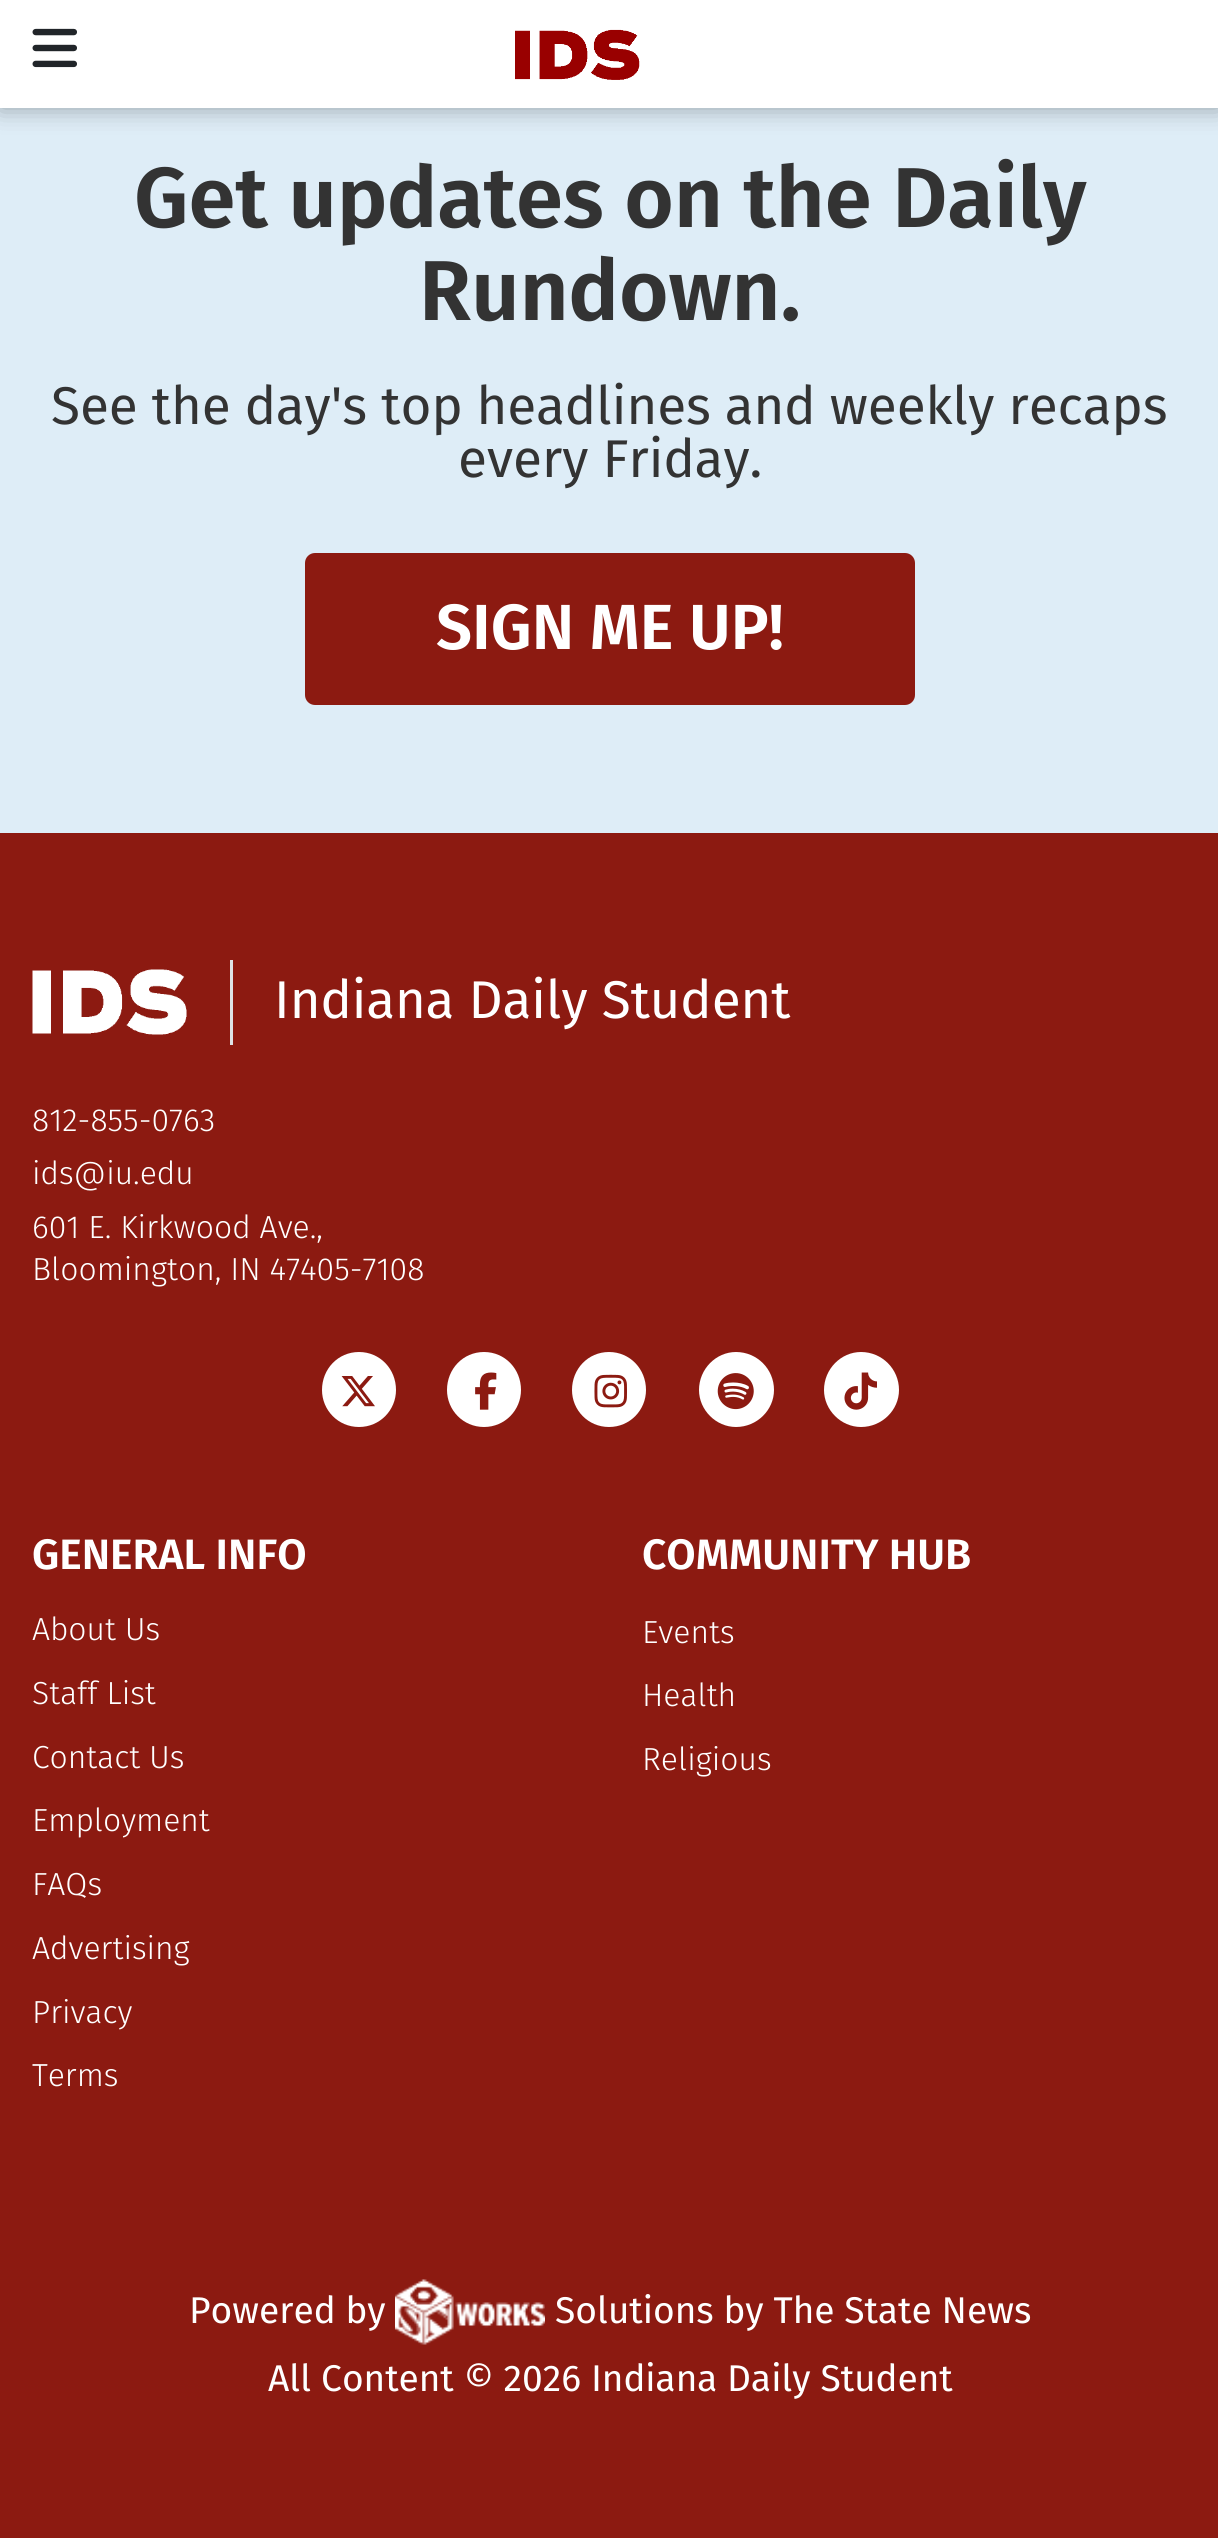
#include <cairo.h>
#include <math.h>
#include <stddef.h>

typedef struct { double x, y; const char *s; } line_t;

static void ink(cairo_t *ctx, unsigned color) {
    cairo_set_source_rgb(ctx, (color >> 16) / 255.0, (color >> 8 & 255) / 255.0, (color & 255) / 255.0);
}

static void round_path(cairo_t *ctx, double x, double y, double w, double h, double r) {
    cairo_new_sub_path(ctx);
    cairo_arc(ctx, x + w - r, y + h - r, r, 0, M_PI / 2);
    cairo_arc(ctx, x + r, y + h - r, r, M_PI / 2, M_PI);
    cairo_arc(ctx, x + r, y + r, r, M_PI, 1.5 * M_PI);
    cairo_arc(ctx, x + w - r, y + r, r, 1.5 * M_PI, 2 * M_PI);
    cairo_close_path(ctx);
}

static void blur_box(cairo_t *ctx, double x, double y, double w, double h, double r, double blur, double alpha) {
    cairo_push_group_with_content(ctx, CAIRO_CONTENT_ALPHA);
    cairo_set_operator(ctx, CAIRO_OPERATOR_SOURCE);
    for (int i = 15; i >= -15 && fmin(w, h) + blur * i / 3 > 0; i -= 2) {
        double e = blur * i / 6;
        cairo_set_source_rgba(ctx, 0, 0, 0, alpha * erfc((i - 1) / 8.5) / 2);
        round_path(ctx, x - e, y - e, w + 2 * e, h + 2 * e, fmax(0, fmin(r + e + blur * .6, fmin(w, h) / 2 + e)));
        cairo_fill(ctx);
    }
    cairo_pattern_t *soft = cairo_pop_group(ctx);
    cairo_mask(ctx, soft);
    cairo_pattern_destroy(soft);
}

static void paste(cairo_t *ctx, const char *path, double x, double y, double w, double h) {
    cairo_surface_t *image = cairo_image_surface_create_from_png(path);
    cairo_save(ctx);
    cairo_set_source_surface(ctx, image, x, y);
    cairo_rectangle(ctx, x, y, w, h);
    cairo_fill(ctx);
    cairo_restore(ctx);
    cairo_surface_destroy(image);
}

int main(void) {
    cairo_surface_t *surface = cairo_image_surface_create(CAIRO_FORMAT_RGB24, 1218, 2538);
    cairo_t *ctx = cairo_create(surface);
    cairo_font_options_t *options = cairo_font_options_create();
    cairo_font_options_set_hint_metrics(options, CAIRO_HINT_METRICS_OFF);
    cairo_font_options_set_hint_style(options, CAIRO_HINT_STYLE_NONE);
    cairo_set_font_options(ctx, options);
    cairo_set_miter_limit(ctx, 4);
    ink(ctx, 0xDEEDF7);
    cairo_paint(ctx);
    ink(ctx, 0x000000);
    blur_box(ctx, 0, 0, 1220, 108, 0, 12.5, 0.33);
    ink(ctx, 0xFFFFFF);
    cairo_rectangle(ctx, 0, 0, 1218, 108);
    cairo_fill(ctx);
    paste(ctx, "media/1.png", 32, 28, 45, 40);
    paste(ctx, "media/2.png", 515, 29, 125, 51);
    cairo_select_font_face(ctx, "Fira Sans SemiBold", CAIRO_FONT_SLANT_NORMAL, CAIRO_FONT_WEIGHT_NORMAL);
    cairo_set_font_size(ctx, 85);
    ink(ctx, 0x333333);
    cairo_move_to(ctx, 134, 227);
    cairo_show_text(ctx, "Get updates on the Daily");
    cairo_move_to(ctx, 419, 320);
    cairo_show_text(ctx, "Rundown.");
    cairo_select_font_face(ctx, "Fira Sans", CAIRO_FONT_SLANT_NORMAL, CAIRO_FONT_WEIGHT_NORMAL);
    cairo_set_font_size(ctx, 53.1);
    cairo_move_to(ctx, 51, 424);
    cairo_show_text(ctx, "See the day's top headlines and weekly recaps");
    cairo_move_to(ctx, 458, 477);
    cairo_show_text(ctx, "every Friday.");
    ink(ctx, 0x8C1A11);
    round_path(ctx, 306.5, 554.5, 607, 149, 8.5);
    cairo_fill_preserve(ctx);
    cairo_set_line_width(ctx, 3);
    cairo_stroke(ctx);
    cairo_select_font_face(ctx, "Fira Sans SemiBold", CAIRO_FONT_SLANT_NORMAL, CAIRO_FONT_WEIGHT_NORMAL);
    cairo_set_font_size(ctx, 63.75);
    ink(ctx, 0xFFFFFF);
    cairo_move_to(ctx, 436, 649);
    cairo_show_text(ctx, "SIGN ME UP!");
    ink(ctx, 0x8C1A11);
    cairo_rectangle(ctx, 0, 833, 1218, 1705);
    cairo_fill(ctx);
    ink(ctx, 0xDEE2E6);
    cairo_rectangle(ctx, 230, 960, 3, 85);
    cairo_fill(ctx);
    paste(ctx, "media/3.png", 32, 969, 155, 66);
    cairo_select_font_face(ctx, "Fira Sans", CAIRO_FONT_SLANT_NORMAL, CAIRO_FONT_WEIGHT_NORMAL);
    cairo_set_font_size(ctx, 53.1);
    ink(ctx, 0xFFFFFF);
    cairo_move_to(ctx, 274, 1018);
    cairo_show_text(ctx, "Indiana Daily Student");
    cairo_select_font_face(ctx, "Fira Sans Light", CAIRO_FONT_SLANT_NORMAL, CAIRO_FONT_WEIGHT_NORMAL);
    cairo_set_font_size(ctx, 31.9);
    {
        static const line_t items[] = {
            {32, 1131, "812-855-0763"},
            {32, 1184, "ids@iu.edu"},
            {32, 1238, "601 E. Kirkwood Ave.,"},
            {32, 1280, "Bloomington, IN 47405-7108"},
        };
        for (size_t i = 0; i < sizeof items / sizeof *items; i++) {
            cairo_move_to(ctx, items[i].x, items[i].y);
            cairo_show_text(ctx, items[i].s);
        }
    }
    cairo_new_path(ctx);
    cairo_move_to(ctx, 359, 1427);
    cairo_curve_to(ctx, 380, 1427, 396, 1410, 396, 1390);
    cairo_curve_to(ctx, 396, 1369, 380, 1352, 359, 1352);
    cairo_curve_to(ctx, 338, 1352, 322, 1369, 322, 1390);
    cairo_curve_to(ctx, 322, 1410, 338, 1427, 359, 1427);
    cairo_close_path(ctx);
    cairo_fill(ctx);
    paste(ctx, "media/4.png", 341, 1376, 34, 31);
    cairo_new_path(ctx);
    cairo_move_to(ctx, 484, 1427);
    cairo_curve_to(ctx, 505, 1427, 521, 1410, 521, 1390);
    cairo_curve_to(ctx, 521, 1369, 505, 1352, 484, 1352);
    cairo_curve_to(ctx, 463, 1352, 447, 1369, 447, 1390);
    cairo_curve_to(ctx, 447, 1410, 463, 1427, 484, 1427);
    cairo_close_path(ctx);
    cairo_fill(ctx);
    paste(ctx, "media/5.png", 475, 1372, 22, 38);
    cairo_new_path(ctx);
    cairo_move_to(ctx, 609, 1427);
    cairo_curve_to(ctx, 630, 1427, 646, 1410, 646, 1390);
    cairo_curve_to(ctx, 646, 1369, 630, 1352, 609, 1352);
    cairo_curve_to(ctx, 588, 1352, 572, 1369, 572, 1390);
    cairo_curve_to(ctx, 572, 1410, 588, 1427, 609, 1427);
    cairo_close_path(ctx);
    cairo_fill(ctx);
    paste(ctx, "media/6.png", 594, 1374, 33, 34);
    cairo_new_path(ctx);
    cairo_move_to(ctx, 736, 1427);
    cairo_curve_to(ctx, 757, 1427, 774, 1410, 774, 1390);
    cairo_curve_to(ctx, 774, 1369, 757, 1352, 736, 1352);
    cairo_curve_to(ctx, 716, 1352, 699, 1369, 699, 1390);
    cairo_curve_to(ctx, 699, 1410, 716, 1427, 736, 1427);
    cairo_close_path(ctx);
    cairo_fill(ctx);
    paste(ctx, "media/7.png", 717, 1373, 37, 37);
    cairo_new_path(ctx);
    cairo_move_to(ctx, 861, 1427);
    cairo_curve_to(ctx, 882, 1427, 899, 1410, 899, 1390);
    cairo_curve_to(ctx, 899, 1369, 882, 1352, 861, 1352);
    cairo_curve_to(ctx, 841, 1352, 824, 1369, 824, 1390);
    cairo_curve_to(ctx, 824, 1410, 841, 1427, 861, 1427);
    cairo_close_path(ctx);
    cairo_fill(ctx);
    paste(ctx, "media/8.png", 844, 1372, 33, 38);
    cairo_select_font_face(ctx, "Fira Sans SemiBold", CAIRO_FONT_SLANT_NORMAL, CAIRO_FONT_WEIGHT_NORMAL);
    cairo_set_font_size(ctx, 42.5);
    cairo_move_to(ctx, 32, 1569);
    cairo_show_text(ctx, "GENERAL INFO");
    cairo_select_font_face(ctx, "Fira Sans Light", CAIRO_FONT_SLANT_NORMAL, CAIRO_FONT_WEIGHT_NORMAL);
    cairo_set_font_size(ctx, 31.9);
    {
        static const line_t items[] = {
            {32, 1640, "About Us"},
            {32, 1704, "Staff List"},
            {32, 1768, "Contact Us"},
            {32, 1831, "Employment"},
            {32, 1895, "FAQs"},
            {32, 1959, "Advertising"},
            {32, 2023, "Privacy"},
            {32, 2086, "Terms"},
        };
        for (size_t i = 0; i < sizeof items / sizeof *items; i++) {
            cairo_move_to(ctx, items[i].x, items[i].y);
            cairo_show_text(ctx, items[i].s);
        }
    }
    cairo_select_font_face(ctx, "Fira Sans SemiBold", CAIRO_FONT_SLANT_NORMAL, CAIRO_FONT_WEIGHT_NORMAL);
    cairo_set_font_size(ctx, 42.5);
    cairo_move_to(ctx, 642, 1569);
    cairo_show_text(ctx, "COMMUNITY HUB");
    cairo_select_font_face(ctx, "Fira Sans Light", CAIRO_FONT_SLANT_NORMAL, CAIRO_FONT_WEIGHT_NORMAL);
    cairo_set_font_size(ctx, 31.9);
    {
        static const line_t items[] = {
            {642, 1643, "Events"},
            {642, 1706, "Health"},
            {642, 1770, "Religious"},
        };
        for (size_t i = 0; i < sizeof items / sizeof *items; i++) {
            cairo_move_to(ctx, items[i].x, items[i].y);
            cairo_show_text(ctx, items[i].s);
        }
    }
    cairo_select_font_face(ctx, "Fira Sans", CAIRO_FONT_SLANT_NORMAL, CAIRO_FONT_WEIGHT_NORMAL);
    cairo_set_font_size(ctx, 37.2);
    cairo_move_to(ctx, 189, 2323);
    cairo_show_text(ctx, "Powered by");
    paste(ctx, "media/9.png", 395, 2279, 150, 66);
    cairo_move_to(ctx, 555, 2323);
    cairo_show_text(ctx, "Solutions by The State News");
    cairo_move_to(ctx, 268, 2391);
    cairo_show_text(ctx, "All Content © 2026 Indiana Daily Student");
    cairo_surface_write_to_png(surface, "image.png");
    cairo_font_options_destroy(options);
    cairo_destroy(ctx);
    cairo_surface_destroy(surface);
    return 0;
}
